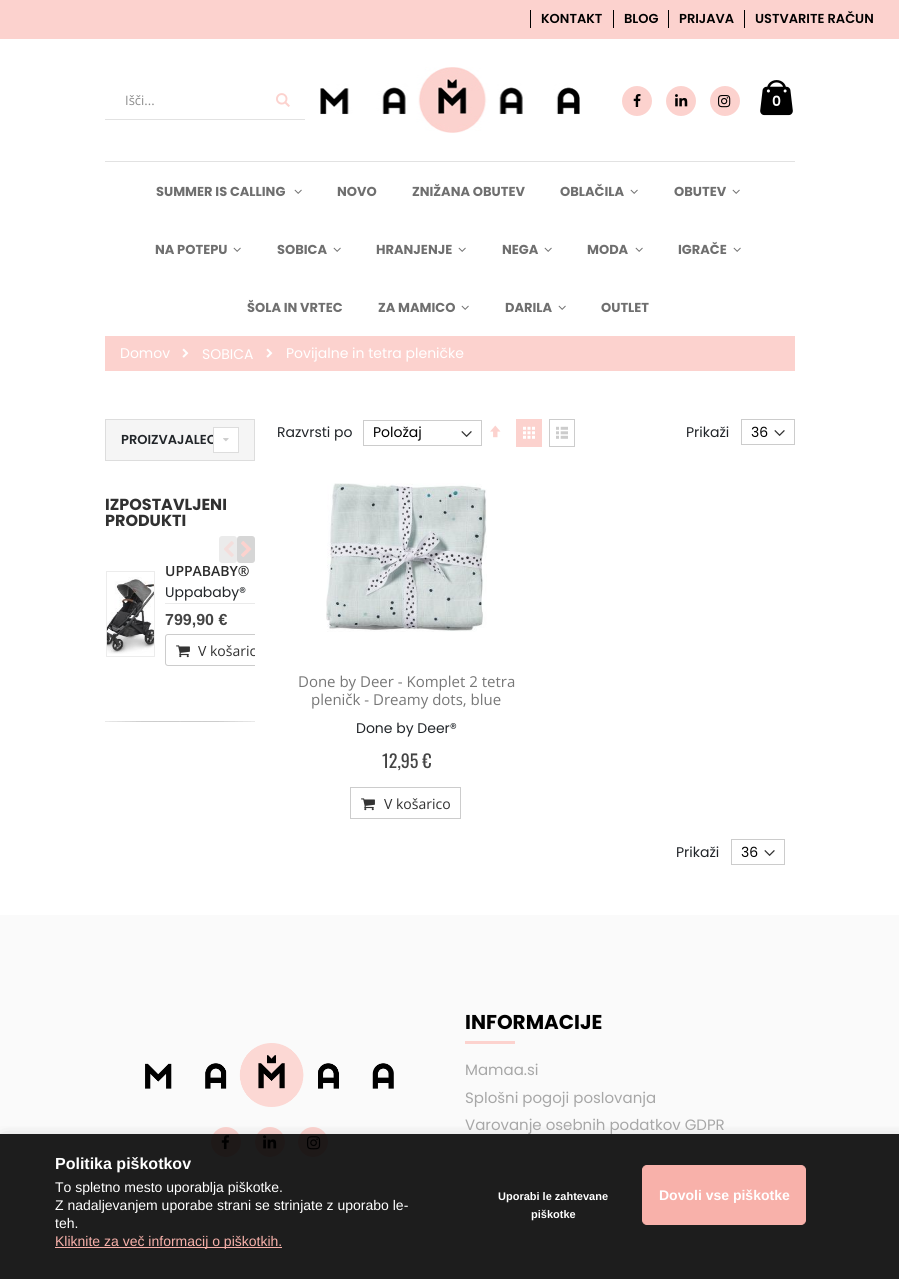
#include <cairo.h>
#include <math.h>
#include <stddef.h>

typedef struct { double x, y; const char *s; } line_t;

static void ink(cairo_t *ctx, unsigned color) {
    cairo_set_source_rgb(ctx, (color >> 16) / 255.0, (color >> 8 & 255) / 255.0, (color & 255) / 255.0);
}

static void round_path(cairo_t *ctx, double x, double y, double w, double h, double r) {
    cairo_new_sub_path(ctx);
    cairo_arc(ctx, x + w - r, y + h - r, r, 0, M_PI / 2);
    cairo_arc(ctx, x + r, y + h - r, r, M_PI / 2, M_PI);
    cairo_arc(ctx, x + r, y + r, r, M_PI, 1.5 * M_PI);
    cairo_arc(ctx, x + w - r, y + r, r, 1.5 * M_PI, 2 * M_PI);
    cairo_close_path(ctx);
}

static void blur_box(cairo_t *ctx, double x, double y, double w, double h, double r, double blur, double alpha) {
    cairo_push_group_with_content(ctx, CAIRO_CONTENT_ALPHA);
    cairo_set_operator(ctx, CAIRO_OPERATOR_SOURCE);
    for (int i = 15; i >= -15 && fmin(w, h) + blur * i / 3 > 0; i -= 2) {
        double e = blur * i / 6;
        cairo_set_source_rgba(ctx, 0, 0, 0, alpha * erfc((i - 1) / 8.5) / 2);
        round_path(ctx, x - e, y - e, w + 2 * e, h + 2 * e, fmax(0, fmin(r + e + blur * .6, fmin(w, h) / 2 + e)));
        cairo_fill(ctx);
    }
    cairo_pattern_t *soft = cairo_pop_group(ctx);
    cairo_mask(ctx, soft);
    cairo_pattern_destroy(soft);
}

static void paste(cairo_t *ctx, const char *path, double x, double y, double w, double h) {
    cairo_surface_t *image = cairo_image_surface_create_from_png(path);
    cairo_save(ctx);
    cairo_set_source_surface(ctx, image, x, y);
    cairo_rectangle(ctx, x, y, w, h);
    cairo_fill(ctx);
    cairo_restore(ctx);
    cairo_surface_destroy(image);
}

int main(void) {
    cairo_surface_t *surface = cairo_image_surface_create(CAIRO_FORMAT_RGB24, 899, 1279);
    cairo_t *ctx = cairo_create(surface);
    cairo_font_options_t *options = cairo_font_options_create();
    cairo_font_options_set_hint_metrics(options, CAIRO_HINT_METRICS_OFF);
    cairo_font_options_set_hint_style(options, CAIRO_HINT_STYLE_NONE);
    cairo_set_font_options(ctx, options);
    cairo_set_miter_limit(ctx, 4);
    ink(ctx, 0xFFFFFF);
    cairo_paint(ctx);
    ink(ctx, 0xFCD2CE);
    cairo_rectangle(ctx, 0, 0, 899, 39);
    cairo_fill(ctx);
    ink(ctx, 0x000000);
    cairo_rectangle(ctx, 530, 10, 1, 18);
    cairo_fill(ctx);
    cairo_select_font_face(ctx, "Poppins SemiBold", CAIRO_FONT_SLANT_NORMAL, CAIRO_FONT_WEIGHT_NORMAL);
    cairo_set_font_size(ctx, 13);
    cairo_move_to(ctx, 541, 23);
    cairo_show_text(ctx, "KONTAKT");
    cairo_rectangle(ctx, 613, 10, 1, 18);
    cairo_fill(ctx);
    cairo_move_to(ctx, 624, 23);
    cairo_show_text(ctx, "BLOG");
    cairo_rectangle(ctx, 668, 10, 1, 18);
    cairo_fill(ctx);
    cairo_move_to(ctx, 679, 23);
    cairo_show_text(ctx, "PRIJAVA");
    cairo_rectangle(ctx, 744, 10, 1, 18);
    cairo_fill(ctx);
    cairo_move_to(ctx, 755, 23);
    cairo_show_text(ctx, "USTVARITE RAČUN");
    ink(ctx, 0xE2E2E2);
    cairo_rectangle(ctx, 105, 119, 200, 1);
    cairo_fill(ctx);
    cairo_select_font_face(ctx, "Open Sans", CAIRO_FONT_SLANT_NORMAL, CAIRO_FONT_WEIGHT_NORMAL);
    ink(ctx, 0x8D8D8D);
    cairo_move_to(ctx, 125, 105);
    cairo_show_text(ctx, "Išči...");
    paste(ctx, "media/1.png", 276, 93, 14, 14);
    paste(ctx, "media/2.png", 320, 67, 260, 66);
    ink(ctx, 0xFCD2CE);
    cairo_arc(ctx, 637, 101, 14, 0, 2 * M_PI);
    cairo_fill_preserve(ctx);
    cairo_stroke(ctx);
    paste(ctx, "media/3.png", 633, 94, 8, 13);
    cairo_arc(ctx, 681, 101, 14, 0, 2 * M_PI);
    cairo_fill_preserve(ctx);
    cairo_stroke(ctx);
    paste(ctx, "media/4.png", 675, 94, 13, 13);
    cairo_arc(ctx, 725, 101, 14, 0, 2 * M_PI);
    cairo_fill_preserve(ctx);
    cairo_stroke(ctx);
    paste(ctx, "media/5.png", 718, 95, 13, 13);
    paste(ctx, "media/6.png", 760, 80, 33, 36);
    cairo_select_font_face(ctx, "Poppins SemiBold", CAIRO_FONT_SLANT_NORMAL, CAIRO_FONT_WEIGHT_NORMAL);
    cairo_set_font_size(ctx, 14);
    ink(ctx, 0xFFFFFF);
    cairo_move_to(ctx, 772, 106);
    cairo_show_text(ctx, "0");
    ink(ctx, 0xE2E2E2);
    cairo_rectangle(ctx, 105, 161, 690, 1);
    cairo_fill(ctx);
    cairo_select_font_face(ctx, "Poppins", CAIRO_FONT_SLANT_NORMAL, CAIRO_FONT_WEIGHT_BOLD);
    cairo_set_font_size(ctx, 13);
    ink(ctx, 0x6F6F6F);
    cairo_move_to(ctx, 156, 196);
    cairo_show_text(ctx, "SUMMER IS CALLING");
    paste(ctx, "media/7.png", 294, 189, 8, 5);
    {
        static const line_t items[] = {
            {337, 196, "NOVO"},
            {412, 196, "ZNIŽANA OBUTEV"},
            {560, 196, "OBLAČILA"},
        };
        for (size_t i = 0; i < sizeof items / sizeof *items; i++) {
            cairo_move_to(ctx, items[i].x, items[i].y);
            cairo_show_text(ctx, items[i].s);
        }
    }
    paste(ctx, "media/7.png", 630, 189, 8, 5);
    cairo_move_to(ctx, 674, 196);
    cairo_show_text(ctx, "OBUTEV");
    paste(ctx, "media/7.png", 732, 189, 8, 5);
    cairo_move_to(ctx, 155, 254);
    cairo_show_text(ctx, "NA POTEPU");
    paste(ctx, "media/7.png", 233, 247, 8, 5);
    cairo_move_to(ctx, 277, 254);
    cairo_show_text(ctx, "SOBICA");
    paste(ctx, "media/7.png", 333, 247, 8, 5);
    cairo_move_to(ctx, 376, 254);
    cairo_show_text(ctx, "HRANJENJE");
    paste(ctx, "media/7.png", 458, 247, 8, 5);
    cairo_move_to(ctx, 502, 254);
    cairo_show_text(ctx, "NEGA");
    paste(ctx, "media/7.png", 544, 247, 8, 5);
    cairo_move_to(ctx, 587, 254);
    cairo_show_text(ctx, "MODA");
    paste(ctx, "media/7.png", 635, 247, 8, 5);
    cairo_move_to(ctx, 678, 254);
    cairo_show_text(ctx, "IGRAČE");
    paste(ctx, "media/7.png", 733, 247, 8, 5);
    cairo_move_to(ctx, 247, 312);
    cairo_show_text(ctx, "ŠOLA IN VRTEC");
    cairo_move_to(ctx, 378, 312);
    cairo_show_text(ctx, "ZA MAMICO");
    paste(ctx, "media/7.png", 461, 305, 8, 5);
    cairo_move_to(ctx, 505, 312);
    cairo_show_text(ctx, "DARILA");
    paste(ctx, "media/7.png", 558, 305, 8, 5);
    cairo_move_to(ctx, 601, 312);
    cairo_show_text(ctx, "OUTLET");
    ink(ctx, 0xFCD2CE);
    cairo_rectangle(ctx, 105, 336, 690, 35);
    cairo_fill(ctx);
    cairo_select_font_face(ctx, "Poppins", CAIRO_FONT_SLANT_NORMAL, CAIRO_FONT_WEIGHT_NORMAL);
    cairo_set_font_size(ctx, 14);
    ink(ctx, 0xFFFFFF);
    cairo_move_to(ctx, 120, 358);
    cairo_show_text(ctx, "Domov");
    paste(ctx, "media/8.png", 182, 348, 7, 10);
    cairo_move_to(ctx, 202, 359);
    cairo_show_text(ctx, "SOBICA");
    paste(ctx, "media/8.png", 266, 348, 7, 10);
    cairo_move_to(ctx, 286, 358);
    cairo_show_text(ctx, "Povijalne in tetra pleničke");
    ink(ctx, 0x212529);
    cairo_move_to(ctx, 277, 437);
    cairo_show_text(ctx, "Razvrsti po");
    paste(ctx, "media/9.png", 461, 431, 11, 6);
    cairo_rectangle(ctx, 363.5, 420.5, 118, 25);
    ink(ctx, 0xCCCCCC);
    cairo_set_line_width(ctx, 1);
    cairo_stroke(ctx);
    ink(ctx, 0x000000);
    cairo_move_to(ctx, 373, 437);
    cairo_show_text(ctx, "Položaj");
    paste(ctx, "media/10.png", 490, 425, 11, 13);
    ink(ctx, 0xFCD2CE);
    cairo_rectangle(ctx, 516, 419, 26, 28);
    cairo_fill(ctx);
    paste(ctx, "media/11.png", 523, 426, 12, 13);
    cairo_rectangle(ctx, 549.5, 419.5, 25, 27);
    ink(ctx, 0xCCCCCC);
    cairo_stroke(ctx);
    paste(ctx, "media/12.png", 556, 426, 12, 13);
    ink(ctx, 0x212529);
    cairo_move_to(ctx, 686, 437);
    cairo_show_text(ctx, "Prikaži");
    paste(ctx, "media/9.png", 774, 430, 11, 6);
    cairo_rectangle(ctx, 741.5, 419.5, 53, 25);
    ink(ctx, 0xCCCCCC);
    cairo_stroke(ctx);
    ink(ctx, 0x000000);
    cairo_move_to(ctx, 751, 437);
    cairo_show_text(ctx, "36");
    paste(ctx, "media/13.png", 326, 483, 161, 149);
    cairo_select_font_face(ctx, "Open Sans", CAIRO_FONT_SLANT_NORMAL, CAIRO_FONT_WEIGHT_NORMAL);
    cairo_set_font_size(ctx, 15);
    ink(ctx, 0x777777);
    cairo_move_to(ctx, 298, 687);
    cairo_show_text(ctx, "Done by Deer - Komplet 2 tetra");
    cairo_move_to(ctx, 311, 705);
    cairo_show_text(ctx, "pleničk - Dreamy dots, blue");
    cairo_select_font_face(ctx, "Poppins", CAIRO_FONT_SLANT_NORMAL, CAIRO_FONT_WEIGHT_NORMAL);
    cairo_set_font_size(ctx, 14);
    ink(ctx, 0x212529);
    cairo_move_to(ctx, 356, 733);
    cairo_show_text(ctx, "Done by Deer®");
    cairo_select_font_face(ctx, "Oswald", CAIRO_FONT_SLANT_NORMAL, CAIRO_FONT_WEIGHT_NORMAL);
    cairo_set_font_size(ctx, 18);
    ink(ctx, 0x444444);
    cairo_move_to(ctx, 382, 768);
    cairo_show_text(ctx, "12,95 €");
    cairo_rectangle(ctx, 350.5, 787.5, 110, 31);
    ink(ctx, 0xCCCCCC);
    cairo_stroke(ctx);
    paste(ctx, "media/14.png", 361, 798, 14, 13);
    cairo_select_font_face(ctx, "Open Sans", CAIRO_FONT_SLANT_NORMAL, CAIRO_FONT_WEIGHT_NORMAL);
    cairo_set_font_size(ctx, 14);
    ink(ctx, 0x313131);
    cairo_move_to(ctx, 384, 809);
    cairo_show_text(ctx, "V košarico");
    cairo_select_font_face(ctx, "Poppins", CAIRO_FONT_SLANT_NORMAL, CAIRO_FONT_WEIGHT_NORMAL);
    ink(ctx, 0x212529);
    cairo_move_to(ctx, 676, 857);
    cairo_show_text(ctx, "Prikaži");
    paste(ctx, "media/9.png", 764, 850, 11, 6);
    cairo_rectangle(ctx, 731.5, 839.5, 53, 25);
    ink(ctx, 0xCCCCCC);
    cairo_stroke(ctx);
    ink(ctx, 0x000000);
    cairo_move_to(ctx, 741, 857);
    cairo_show_text(ctx, "36");
    ink(ctx, 0xFAFAFA);
    cairo_rectangle(ctx, 0, 915, 899, 364);
    cairo_fill(ctx);
    ink(ctx, 0xFCD2CE);
    cairo_arc(ctx, 226, 1142, 14, 0, 2 * M_PI);
    cairo_fill_preserve(ctx);
    cairo_set_line_width(ctx, 2);
    cairo_stroke(ctx);
    paste(ctx, "media/21.png", 221, 1135, 9, 15);
    cairo_arc(ctx, 270, 1142, 14, 0, 2 * M_PI);
    cairo_fill_preserve(ctx);
    cairo_stroke(ctx);
    paste(ctx, "media/22.png", 263, 1135, 14, 14);
    cairo_arc(ctx, 313, 1142, 14, 0, 2 * M_PI);
    cairo_fill_preserve(ctx);
    cairo_stroke(ctx);
    paste(ctx, "media/23.png", 307, 1136, 14, 14);
    cairo_save(ctx);
    cairo_rectangle(ctx, 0, 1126, 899, 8);
    cairo_clip(ctx);
    ink(ctx, 0x888888);
    blur_box(ctx, 5, 1144, 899, 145, 0, 9, 1);
    cairo_restore(ctx);
    cairo_set_source_rgba(ctx, 0, 0, 0, 0.88);
    cairo_rectangle(ctx, 0, 1134, 899, 145);
    cairo_fill(ctx);
    cairo_select_font_face(ctx, "Liberation Sans", CAIRO_FONT_SLANT_NORMAL, CAIRO_FONT_WEIGHT_BOLD);
    cairo_set_font_size(ctx, 16);
    ink(ctx, 0xFFFFFF);
    cairo_move_to(ctx, 55, 1169);
    cairo_show_text(ctx, "Politika piškotkov");
    cairo_select_font_face(ctx, "Liberation Sans", CAIRO_FONT_SLANT_NORMAL, CAIRO_FONT_WEIGHT_NORMAL);
    cairo_set_font_size(ctx, 14);
    {
        static const line_t items[] = {
            {55, 1192, "To spletno mesto uporablja piškotke."},
            {55, 1210, "Z nadaljevanjem uporabe strani se strinjate z uporabo le-"},
            {55, 1228, "teh."},
        };
        for (size_t i = 0; i < sizeof items / sizeof *items; i++) {
            cairo_move_to(ctx, items[i].x, items[i].y);
            cairo_show_text(ctx, items[i].s);
        }
    }
    ink(ctx, 0xF8B1AA);
    cairo_rectangle(ctx, 55, 1247, 227, 1);
    cairo_fill(ctx);
    cairo_move_to(ctx, 55, 1246);
    cairo_show_text(ctx, "Kliknite za več informacij o piškotkih.");
    cairo_select_font_face(ctx, "Liberation Sans", CAIRO_FONT_SLANT_NORMAL, CAIRO_FONT_WEIGHT_BOLD);
    cairo_set_font_size(ctx, 11);
    ink(ctx, 0xFFFFFF);
    cairo_move_to(ctx, 498, 1200);
    cairo_show_text(ctx, "Uporabi le zahtevane");
    cairo_move_to(ctx, 531, 1218);
    cairo_show_text(ctx, "piškotke");
    ink(ctx, 0xF8B1AA);
    round_path(ctx, 642.5, 1165.5, 163, 59, 4.5);
    cairo_fill_preserve(ctx);
    cairo_set_line_width(ctx, 1);
    cairo_stroke(ctx);
    cairo_set_font_size(ctx, 14);
    ink(ctx, 0xFFFFFF);
    cairo_move_to(ctx, 659, 1200);
    cairo_show_text(ctx, "Dovoli vse piškotke");
    ink(ctx, 0xF5F5F5);
    cairo_rectangle(ctx, 105.5, 419.5, 149, 41);
    cairo_fill_preserve(ctx);
    ink(ctx, 0xDDDDDD);
    cairo_stroke(ctx);
    cairo_select_font_face(ctx, "Poppins SemiBold", CAIRO_FONT_SLANT_NORMAL, CAIRO_FONT_WEIGHT_NORMAL);
    cairo_set_font_size(ctx, 13);
    ink(ctx, 0x212529);
    cairo_move_to(ctx, 121, 444);
    cairo_show_text(ctx, "PROIZVAJALEC");
    ink(ctx, 0xFFFFFF);
    cairo_rectangle(ctx, 213.5, 427.5, 25, 25);
    cairo_fill_preserve(ctx);
    ink(ctx, 0xDDDDDD);
    cairo_stroke(ctx);
    paste(ctx, "media/15.png", 223, 438, 6, 4);
    cairo_select_font_face(ctx, "Poppins", CAIRO_FONT_SLANT_NORMAL, CAIRO_FONT_WEIGHT_BOLD);
    cairo_set_font_size(ctx, 16);
    ink(ctx, 0x313131);
    cairo_move_to(ctx, 105, 510);
    cairo_show_text(ctx, "IZPOSTAVLJENI");
    cairo_move_to(ctx, 105, 526);
    cairo_show_text(ctx, "PRODUKTI");
    paste(ctx, "media/16.png", 105, 721, 150, 1);
    ink(ctx, 0xEBEBEB);
    round_path(ctx, 219, 536, 18, 27, 3);
    cairo_fill(ctx);
    paste(ctx, "media/17.png", 224, 541, 10, 16);
    ink(ctx, 0xD6D6D6);
    round_path(ctx, 237, 536, 18, 27, 3);
    cairo_fill(ctx);
    paste(ctx, "media/18.png", 241, 541, 11, 16);
    cairo_rectangle(ctx, 106.5, 571.5, 48, 85);
    ink(ctx, 0xECECEC);
    cairo_stroke(ctx);
    paste(ctx, "media/19.png", 106, 577, 48, 77);
    cairo_select_font_face(ctx, "Open Sans SemiBold", CAIRO_FONT_SLANT_NORMAL, CAIRO_FONT_WEIGHT_NORMAL);
    cairo_set_font_size(ctx, 14);
    ink(ctx, 0x2B2B2B);
    cairo_move_to(ctx, 165, 576);
    cairo_show_text(ctx, "UPPABABY®");
    cairo_select_font_face(ctx, "Poppins", CAIRO_FONT_SLANT_NORMAL, CAIRO_FONT_WEIGHT_NORMAL);
    ink(ctx, 0x212529);
    cairo_move_to(ctx, 165, 597);
    cairo_show_text(ctx, "Uppababy®");
    ink(ctx, 0xEAEAEA);
    cairo_rectangle(ctx, 165, 603, 90, 1);
    cairo_fill(ctx);
    cairo_select_font_face(ctx, "Liberation Sans", CAIRO_FONT_SLANT_NORMAL, CAIRO_FONT_WEIGHT_BOLD);
    cairo_set_font_size(ctx, 16);
    ink(ctx, 0x444444);
    cairo_move_to(ctx, 165, 625);
    cairo_show_text(ctx, "799,90 €");
    cairo_save(ctx);
    cairo_rectangle(ctx, 105, 553, 150, 149);
    cairo_clip(ctx);
    round_path(ctx, 165.5, 634.5, 110, 31, 2.5);
    ink(ctx, 0xCCCCCC);
    cairo_stroke(ctx);
    cairo_restore(ctx);
    paste(ctx, "media/14.png", 176, 645, 14, 13);
    cairo_save(ctx);
    cairo_rectangle(ctx, 105, 553, 150, 149);
    cairo_clip(ctx);
    cairo_select_font_face(ctx, "Open Sans", CAIRO_FONT_SLANT_NORMAL, CAIRO_FONT_WEIGHT_NORMAL);
    cairo_set_font_size(ctx, 14);
    ink(ctx, 0x313131);
    cairo_move_to(ctx, 198, 656);
    cairo_show_text(ctx, "V košaric");
    cairo_restore(ctx);
    paste(ctx, "media/20.png", 145, 1043, 249, 64);
    cairo_select_font_face(ctx, "Poppins", CAIRO_FONT_SLANT_NORMAL, CAIRO_FONT_WEIGHT_BOLD);
    cairo_set_font_size(ctx, 20);
    ink(ctx, 0x000000);
    cairo_move_to(ctx, 465, 1029);
    cairo_show_text(ctx, "INFORMACIJE");
    ink(ctx, 0xFCD2CE);
    cairo_rectangle(ctx, 465, 1041, 50, 3);
    cairo_fill(ctx);
    cairo_select_font_face(ctx, "Poppins", CAIRO_FONT_SLANT_NORMAL, CAIRO_FONT_WEIGHT_NORMAL);
    cairo_set_font_size(ctx, 15);
    ink(ctx, 0xA7A7A7);
    {
        static const line_t items[] = {
            {465, 1075, "Mamaa.si"},
            {465, 1103, "Splošni pogoji poslovanja"},
            {465, 1130, "Varovanje osebnih podatkov GDPR"},
        };
        for (size_t i = 0; i < sizeof items / sizeof *items; i++) {
            cairo_move_to(ctx, items[i].x, items[i].y);
            cairo_show_text(ctx, items[i].s);
        }
    }
    cairo_surface_write_to_png(surface, "image.png");
    cairo_font_options_destroy(options);
    cairo_destroy(ctx);
    cairo_surface_destroy(surface);
    return 0;
}
